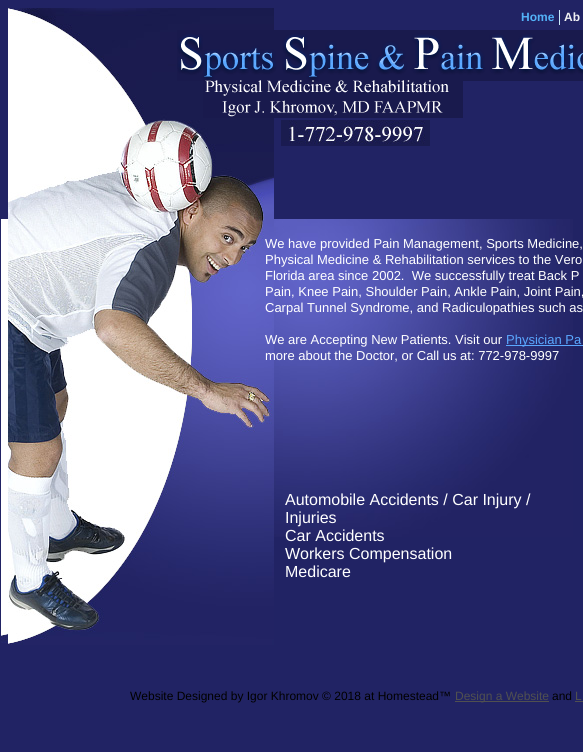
#include <cairo.h>
#include <math.h>
#include <stddef.h>

typedef struct { double x, y; const char *s; } line_t;

static void ink(cairo_t *ctx, unsigned color) {
    cairo_set_source_rgb(ctx, (color >> 16) / 255.0, (color >> 8 & 255) / 255.0, (color & 255) / 255.0);
}

static void paste(cairo_t *ctx, const char *path, double x, double y, double w, double h) {
    cairo_surface_t *image = cairo_image_surface_create_from_png(path);
    cairo_save(ctx);
    cairo_set_source_surface(ctx, image, x, y);
    cairo_rectangle(ctx, x, y, w, h);
    cairo_fill(ctx);
    cairo_restore(ctx);
    cairo_surface_destroy(image);
}

int main(void) {
    cairo_surface_t *surface = cairo_image_surface_create(CAIRO_FORMAT_RGB24, 583, 752);
    cairo_t *ctx = cairo_create(surface);
    cairo_font_options_t *options = cairo_font_options_create();
    cairo_font_options_set_hint_metrics(options, CAIRO_HINT_METRICS_OFF);
    cairo_font_options_set_hint_style(options, CAIRO_HINT_STYLE_NONE);
    cairo_set_font_options(ctx, options);
    cairo_set_miter_limit(ctx, 4);
    ink(ctx, 0x212364);
    cairo_paint(ctx);
    paste(ctx, "media/1.png", 8, 8, 266, 637);
    cairo_select_font_face(ctx, "Liberation Sans", CAIRO_FONT_SLANT_NORMAL, CAIRO_FONT_WEIGHT_BOLD);
    cairo_set_font_size(ctx, 12);
    ink(ctx, 0x53B2F8);
    cairo_move_to(ctx, 521, 21);
    cairo_show_text(ctx, "Home");
    ink(ctx, 0xC9E9FA);
    cairo_rectangle(ctx, 559, 10, 1, 15);
    cairo_fill(ctx);
    ink(ctx, 0xF0F0F3);
    cairo_move_to(ctx, 564, 21);
    cairo_show_text(ctx, "Ab");
    paste(ctx, "media/2.png", 177, 30, 406, 88);
    paste(ctx, "media/3.png", 281, 120, 149, 26);
    paste(ctx, "media/4.png", 1, 219, 7, 424);
    paste(ctx, "media/5.png", 274, 219, 299, 318);
    cairo_select_font_face(ctx, "Liberation Sans", CAIRO_FONT_SLANT_NORMAL, CAIRO_FONT_WEIGHT_NORMAL);
    cairo_set_font_size(ctx, 13);
    ink(ctx, 0xFFFFFF);
    {
        static const line_t items[] = {
            {265, 248, "We have provided Pain Management, Sports Medicine,"},
            {265, 264, "Physical Medicine & Rehabilitation services to the Vero"},
            {265, 280, "Florida area since 2002.  We successfully treat Back P"},
            {265, 296, "Pain, Knee Pain, Shoulder Pain, Ankle Pain, Joint Pain,"},
            {265, 312, "Carpal Tunnel Syndrome, and Radiculopathies such as"},
            {265, 344, "We are Accepting New Patients. Visit our"},
        };
        for (size_t i = 0; i < sizeof items / sizeof *items; i++) {
            cairo_move_to(ctx, items[i].x, items[i].y);
            cairo_show_text(ctx, items[i].s);
        }
    }
    ink(ctx, 0x5AA7FF);
    cairo_rectangle(ctx, 506, 345, 77, 1);
    cairo_fill(ctx);
    cairo_move_to(ctx, 506, 344);
    cairo_show_text(ctx, "Physician Pa");
    ink(ctx, 0xFFFFFF);
    cairo_move_to(ctx, 265, 360);
    cairo_show_text(ctx, "more about the Doctor, or Call us at: 772-978-9997");
    cairo_set_font_size(ctx, 16);
    {
        static const line_t items[] = {
            {285, 505, "Automobile Accidents / Car Injury /"},
            {285, 523, "Injuries"},
            {285, 541, "Car Accidents"},
            {285, 559, "Workers Compensation"},
            {285, 577, "Medicare"},
        };
        for (size_t i = 0; i < sizeof items / sizeof *items; i++) {
            cairo_move_to(ctx, items[i].x, items[i].y);
            cairo_show_text(ctx, items[i].s);
        }
    }
    cairo_set_font_size(ctx, 12);
    ink(ctx, 0x000000);
    cairo_move_to(ctx, 130, 700);
    cairo_show_text(ctx, "Website Designed by Igor Khromov © 2018 at Homestead™");
    ink(ctx, 0x505050);
    cairo_rectangle(ctx, 455, 701, 94, 1);
    cairo_fill(ctx);
    cairo_move_to(ctx, 455, 700);
    cairo_show_text(ctx, "Design a Website");
    ink(ctx, 0x000000);
    cairo_move_to(ctx, 552, 700);
    cairo_show_text(ctx, "and");
    ink(ctx, 0x505050);
    cairo_move_to(ctx, 575, 700);
    cairo_show_text(ctx, "L");
    cairo_rectangle(ctx, 575, 701, 8, 1);
    cairo_fill(ctx);
    cairo_surface_write_to_png(surface, "image.png");
    cairo_font_options_destroy(options);
    cairo_destroy(ctx);
    cairo_surface_destroy(surface);
    return 0;
}
